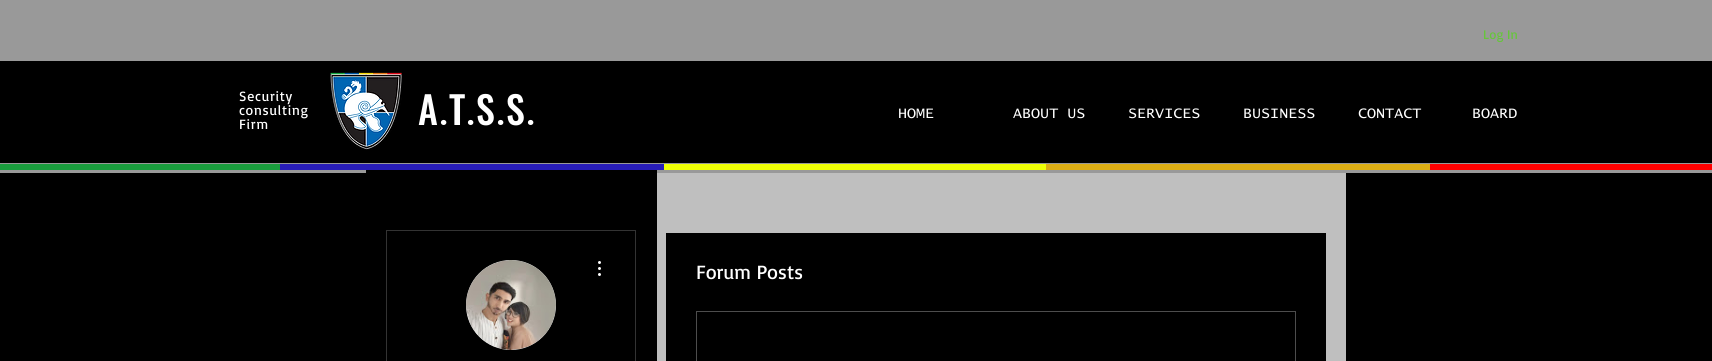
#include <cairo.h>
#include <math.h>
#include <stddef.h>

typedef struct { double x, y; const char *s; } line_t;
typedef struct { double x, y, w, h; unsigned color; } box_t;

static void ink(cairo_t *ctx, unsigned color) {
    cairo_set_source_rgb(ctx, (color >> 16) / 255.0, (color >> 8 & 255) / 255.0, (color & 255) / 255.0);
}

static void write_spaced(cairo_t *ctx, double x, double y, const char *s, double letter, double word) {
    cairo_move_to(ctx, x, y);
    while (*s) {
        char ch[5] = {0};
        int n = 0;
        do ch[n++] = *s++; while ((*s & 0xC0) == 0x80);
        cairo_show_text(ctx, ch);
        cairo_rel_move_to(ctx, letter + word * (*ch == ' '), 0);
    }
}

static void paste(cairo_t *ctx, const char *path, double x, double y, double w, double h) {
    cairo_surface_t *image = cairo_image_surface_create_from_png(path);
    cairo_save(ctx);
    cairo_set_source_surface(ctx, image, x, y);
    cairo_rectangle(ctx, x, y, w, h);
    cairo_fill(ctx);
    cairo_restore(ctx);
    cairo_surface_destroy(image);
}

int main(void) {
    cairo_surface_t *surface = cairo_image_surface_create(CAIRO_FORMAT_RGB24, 1712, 361);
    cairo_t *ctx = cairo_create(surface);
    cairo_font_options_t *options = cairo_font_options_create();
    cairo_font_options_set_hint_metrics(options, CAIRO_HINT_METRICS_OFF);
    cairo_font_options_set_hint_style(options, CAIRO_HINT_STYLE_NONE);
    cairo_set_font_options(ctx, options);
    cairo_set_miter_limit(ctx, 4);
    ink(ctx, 0x000000);
    cairo_paint(ctx);
    ink(ctx, 0x999999);
    cairo_rectangle(ctx, 0, 0, 1712, 173);
    cairo_fill(ctx);
    cairo_select_font_face(ctx, "Basic", CAIRO_FONT_SLANT_NORMAL, CAIRO_FONT_WEIGHT_NORMAL);
    cairo_set_font_size(ctx, 13);
    ink(ctx, 0x66C53B);
    cairo_move_to(ctx, 1483, 39);
    cairo_show_text(ctx, "Log In");
    ink(ctx, 0x000000);
    cairo_rectangle(ctx, 0, 61, 1712, 102);
    cairo_fill(ctx);
    cairo_set_font_size(ctx, 14);
    ink(ctx, 0xFFFFFF);
    {
        static const line_t items[] = {
            {239, 101, "Security"},
            {239, 115, "consulting"},
            {239, 129, "Firm"},
        };
        for (size_t i = 0; i < sizeof items / sizeof *items; i++) {
            write_spaced(ctx, items[i].x, items[i].y, items[i].s, 0.75, 0);
        }
    }
    paste(ctx, "media/1.png", 330, 72, 72, 78);
    cairo_select_font_face(ctx, "Oswald Medium", CAIRO_FONT_SLANT_NORMAL, CAIRO_FONT_WEIGHT_NORMAL);
    cairo_set_font_size(ctx, 38);
    write_spaced(ctx, 418, 125, "A", 2, 0);
    cairo_select_font_face(ctx, "Basic", CAIRO_FONT_SLANT_NORMAL, CAIRO_FONT_WEIGHT_NORMAL);
    write_spaced(ctx, 440, 125, ".", 2, 0);
    cairo_select_font_face(ctx, "Oswald Medium", CAIRO_FONT_SLANT_NORMAL, CAIRO_FONT_WEIGHT_NORMAL);
    write_spaced(ctx, 449, 125, "T", 2, 0);
    cairo_select_font_face(ctx, "Basic", CAIRO_FONT_SLANT_NORMAL, CAIRO_FONT_WEIGHT_NORMAL);
    write_spaced(ctx, 467, 125, ".", 2, 0);
    cairo_select_font_face(ctx, "Oswald Medium", CAIRO_FONT_SLANT_NORMAL, CAIRO_FONT_WEIGHT_NORMAL);
    write_spaced(ctx, 476, 125, "S", 2, 0);
    cairo_select_font_face(ctx, "Basic", CAIRO_FONT_SLANT_NORMAL, CAIRO_FONT_WEIGHT_NORMAL);
    write_spaced(ctx, 497, 125, ".", 2, 0);
    cairo_select_font_face(ctx, "Oswald Medium", CAIRO_FONT_SLANT_NORMAL, CAIRO_FONT_WEIGHT_NORMAL);
    write_spaced(ctx, 506, 125, "S", 2, 0);
    cairo_select_font_face(ctx, "Basic", CAIRO_FONT_SLANT_NORMAL, CAIRO_FONT_WEIGHT_NORMAL);
    write_spaced(ctx, 527, 125, ".", 2, 0);
    cairo_select_font_face(ctx, "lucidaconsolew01", CAIRO_FONT_SLANT_NORMAL, CAIRO_FONT_WEIGHT_NORMAL);
    cairo_set_font_size(ctx, 15);
    {
        static const line_t items[] = {
            {898, 118, "HOME"},
            {1013, 118, "ABOUT US"},
            {1128, 118, "SERVICES"},
            {1243, 118, "BUSINESS"},
            {1358, 118, "CONTACT"},
            {1472, 118, "BOARD"},
        };
        for (size_t i = 0; i < sizeof items / sizeof *items; i++) {
            cairo_move_to(ctx, items[i].x, items[i].y);
            cairo_show_text(ctx, items[i].s);
        }
    }
    {
        static const box_t items[] = {
            {0, 164, 280, 6, 0x1A9C3D},
            {280, 164, 384, 6, 0x281DB8},
            {664, 164, 384, 6, 0xEEFF05},
            {1046, 164, 384, 6, 0xDBAD14},
            {1430, 164, 282, 6, 0xFF0000},
            {366, 170, 291, 3, 0x000000},
        };
        for (size_t i = 0; i < sizeof items / sizeof *items; i++) {
            ink(ctx, items[i].color);
            cairo_rectangle(ctx, items[i].x, items[i].y, items[i].w, items[i].h);
            cairo_fill(ctx);
        }
    }
    cairo_rectangle(ctx, 386.5, 230.5, 249, 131);
    ink(ctx, 0x333333);
    cairo_set_line_width(ctx, 1);
    cairo_stroke(ctx);
    ink(ctx, 0xD8D8D8);
    cairo_arc(ctx, 511, 305, 45, 0, 2 * M_PI);
    cairo_fill(ctx);
    paste(ctx, "media/2.png", 466, 260, 90, 90);
    paste(ctx, "media/3.png", 598, 261, 3, 15);
    ink(ctx, 0xBFBFBF);
    cairo_rectangle(ctx, 657, 173, 689, 188);
    cairo_fill(ctx);
    ink(ctx, 0x000000);
    cairo_rectangle(ctx, 666, 233, 660, 128);
    cairo_fill(ctx);
    cairo_select_font_face(ctx, "Basic", CAIRO_FONT_SLANT_NORMAL, CAIRO_FONT_WEIGHT_NORMAL);
    cairo_set_font_size(ctx, 20);
    ink(ctx, 0xFFFFFF);
    cairo_move_to(ctx, 696, 279);
    cairo_show_text(ctx, "Forum Posts");
    cairo_rectangle(ctx, 696.5, 311.5, 599, 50);
    ink(ctx, 0x4D4D4D);
    cairo_stroke(ctx);
    cairo_surface_write_to_png(surface, "image.png");
    cairo_font_options_destroy(options);
    cairo_destroy(ctx);
    cairo_surface_destroy(surface);
    return 0;
}
